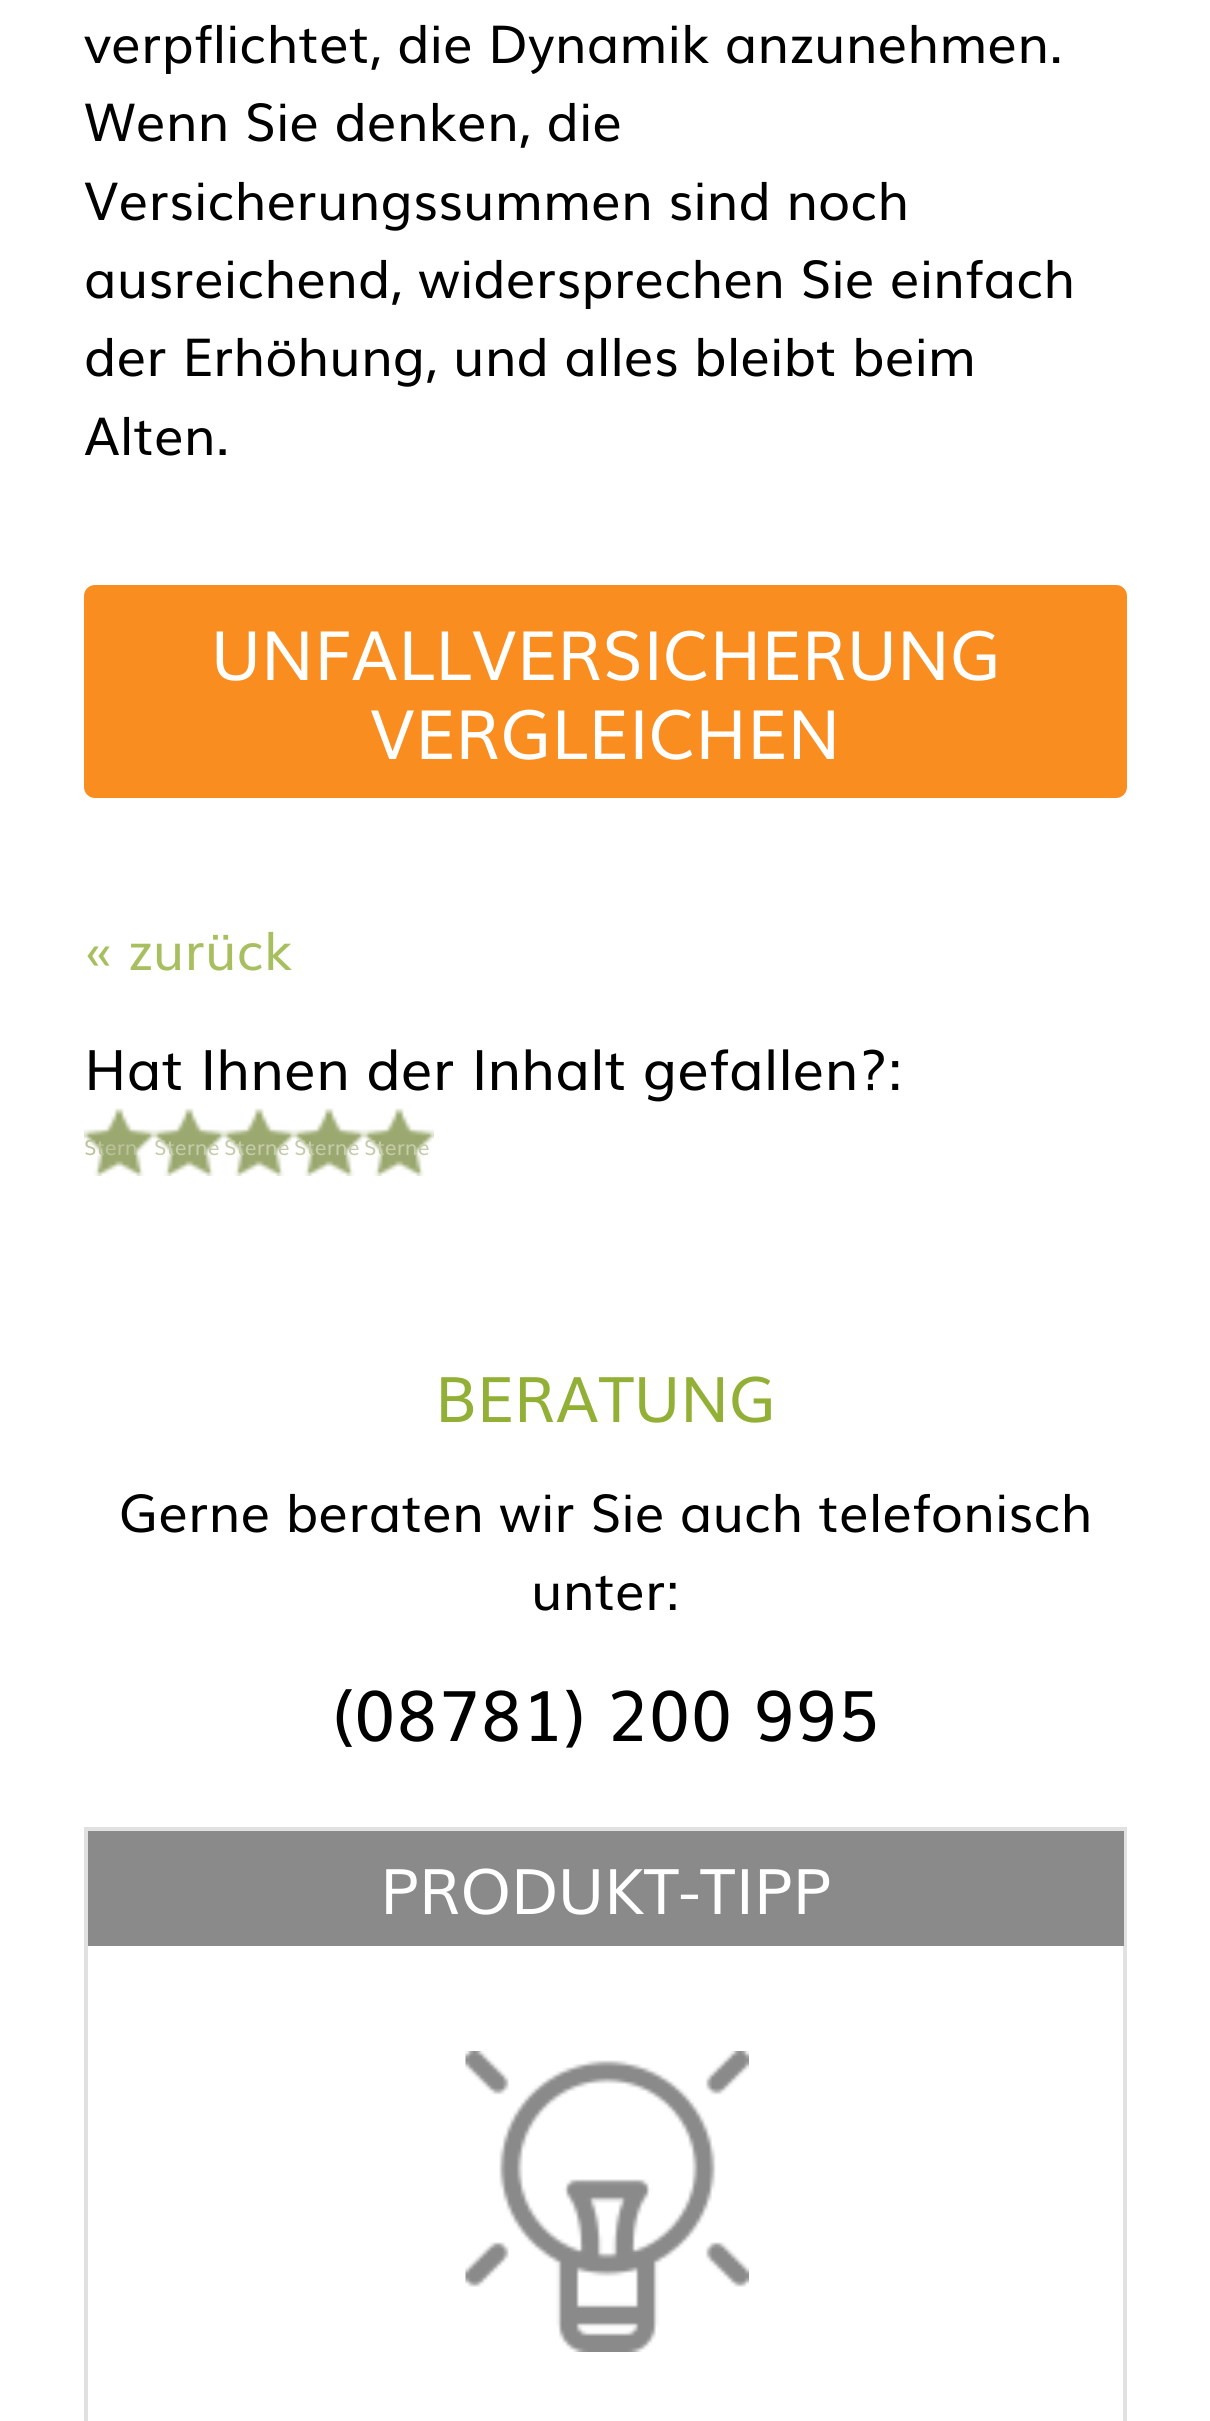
#include <cairo.h>
#include <math.h>
#include <stddef.h>

typedef struct { double x, y; const char *s; } line_t;

static void ink(cairo_t *ctx, unsigned color) {
    cairo_set_source_rgb(ctx, (color >> 16) / 255.0, (color >> 8 & 255) / 255.0, (color & 255) / 255.0);
}

static void round_path(cairo_t *ctx, double x, double y, double w, double h, double r) {
    cairo_new_sub_path(ctx);
    cairo_arc(ctx, x + w - r, y + h - r, r, 0, M_PI / 2);
    cairo_arc(ctx, x + r, y + h - r, r, M_PI / 2, M_PI);
    cairo_arc(ctx, x + r, y + r, r, M_PI, 1.5 * M_PI);
    cairo_arc(ctx, x + w - r, y + r, r, 1.5 * M_PI, 2 * M_PI);
    cairo_close_path(ctx);
}

static void paste(cairo_t *ctx, const char *path, double x, double y, double w, double h) {
    cairo_surface_t *image = cairo_image_surface_create_from_png(path);
    cairo_save(ctx);
    cairo_set_source_surface(ctx, image, x, y);
    cairo_rectangle(ctx, x, y, w, h);
    cairo_fill(ctx);
    cairo_restore(ctx);
    cairo_surface_destroy(image);
}

int main(void) {
    cairo_surface_t *surface = cairo_image_surface_create(CAIRO_FORMAT_RGB24, 1210, 2421);
    cairo_t *ctx = cairo_create(surface);
    cairo_font_options_t *options = cairo_font_options_create();
    cairo_font_options_set_hint_metrics(options, CAIRO_HINT_METRICS_OFF);
    cairo_font_options_set_hint_style(options, CAIRO_HINT_STYLE_NONE);
    cairo_set_font_options(ctx, options);
    cairo_set_miter_limit(ctx, 4);
    ink(ctx, 0xFFFFFF);
    cairo_paint(ctx);
    cairo_select_font_face(ctx, "Muli", CAIRO_FONT_SLANT_NORMAL, CAIRO_FONT_WEIGHT_NORMAL);
    cairo_set_font_size(ctx, 52.5);
    ink(ctx, 0x000000);
    {
        static const line_t items[] = {
            {84, 63, "verpflichtet, die Dynamik anzunehmen."},
            {84, 141, "Wenn Sie denken, die"},
            {84, 220, "Versicherungssummen sind noch"},
            {84, 298, "ausreichend, widersprechen Sie einfach"},
            {84, 376, "der Erhöhung, und alles bleibt beim"},
            {84, 455, "Alten."},
        };
        for (size_t i = 0; i < sizeof items / sizeof *items; i++) {
            cairo_move_to(ctx, items[i].x, items[i].y);
            cairo_show_text(ctx, items[i].s);
        }
    }
    ink(ctx, 0xFA8D1F);
    round_path(ctx, 84, 585, 1043, 213, 11);
    cairo_fill(ctx);
    cairo_set_font_size(ctx, 68.25);
    ink(ctx, 0xFFFFFF);
    cairo_move_to(ctx, 211, 680);
    cairo_show_text(ctx, "UNFALLVERSICHERUNG");
    cairo_move_to(ctx, 370, 759);
    cairo_show_text(ctx, "VERGLEICHEN");
    cairo_set_font_size(ctx, 52.5);
    ink(ctx, 0xA8BF60);
    cairo_move_to(ctx, 84, 970);
    cairo_show_text(ctx, "« zurück");
    cairo_set_font_size(ctx, 56);
    ink(ctx, 0x000000);
    cairo_move_to(ctx, 84, 1090);
    cairo_show_text(ctx, "Hat Ihnen der Inhalt gefallen?:");
    paste(ctx, "media/1.png", 84, 1108, 70, 68);
    cairo_set_font_size(ctx, 21);
    ink(ctx, 0xBAC39C);
    cairo_move_to(ctx, 84, 1155);
    cairo_show_text(ctx, "Stern");
    paste(ctx, "media/1.png", 154, 1108, 70, 68);
    ink(ctx, 0xC4CCAB);
    cairo_move_to(ctx, 154, 1155);
    cairo_show_text(ctx, "Sterne");
    paste(ctx, "media/2.png", 224, 1108, 70, 68);
    cairo_move_to(ctx, 224, 1155);
    cairo_show_text(ctx, "Sterne");
    paste(ctx, "media/2.png", 294, 1108, 70, 68);
    cairo_move_to(ctx, 294, 1155);
    cairo_show_text(ctx, "Sterne");
    paste(ctx, "media/1.png", 364, 1108, 70, 68);
    cairo_move_to(ctx, 364, 1155);
    cairo_show_text(ctx, "Sterne");
    cairo_set_font_size(ctx, 63);
    ink(ctx, 0x92AF36);
    cairo_move_to(ctx, 435, 1422);
    cairo_show_text(ctx, "BERATUNG");
    cairo_set_font_size(ctx, 52.5);
    ink(ctx, 0x000000);
    cairo_move_to(ctx, 119, 1532);
    cairo_show_text(ctx, "Gerne beraten wir Sie auch telefonisch");
    cairo_move_to(ctx, 531, 1610);
    cairo_show_text(ctx, "unter:");
    cairo_set_font_size(ctx, 70);
    cairo_move_to(ctx, 332, 1741);
    cairo_show_text(ctx, "(08781) 200 995");
    cairo_rectangle(ctx, 86, 1829, 1039, 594);
    ink(ctx, 0xE1E1E1);
    cairo_set_line_width(ctx, 4);
    cairo_stroke(ctx);
    ink(ctx, 0x8A8A8A);
    cairo_rectangle(ctx, 88, 1831, 1036, 115);
    cairo_fill(ctx);
    cairo_set_font_size(ctx, 63);
    ink(ctx, 0xFFFFFF);
    cairo_move_to(ctx, 380, 1914);
    cairo_show_text(ctx, "PRODUKT-TIPP");
    paste(ctx, "media/3.png", 465, 2051, 284, 301);
    cairo_surface_write_to_png(surface, "image.png");
    cairo_font_options_destroy(options);
    cairo_destroy(ctx);
    cairo_surface_destroy(surface);
    return 0;
}
